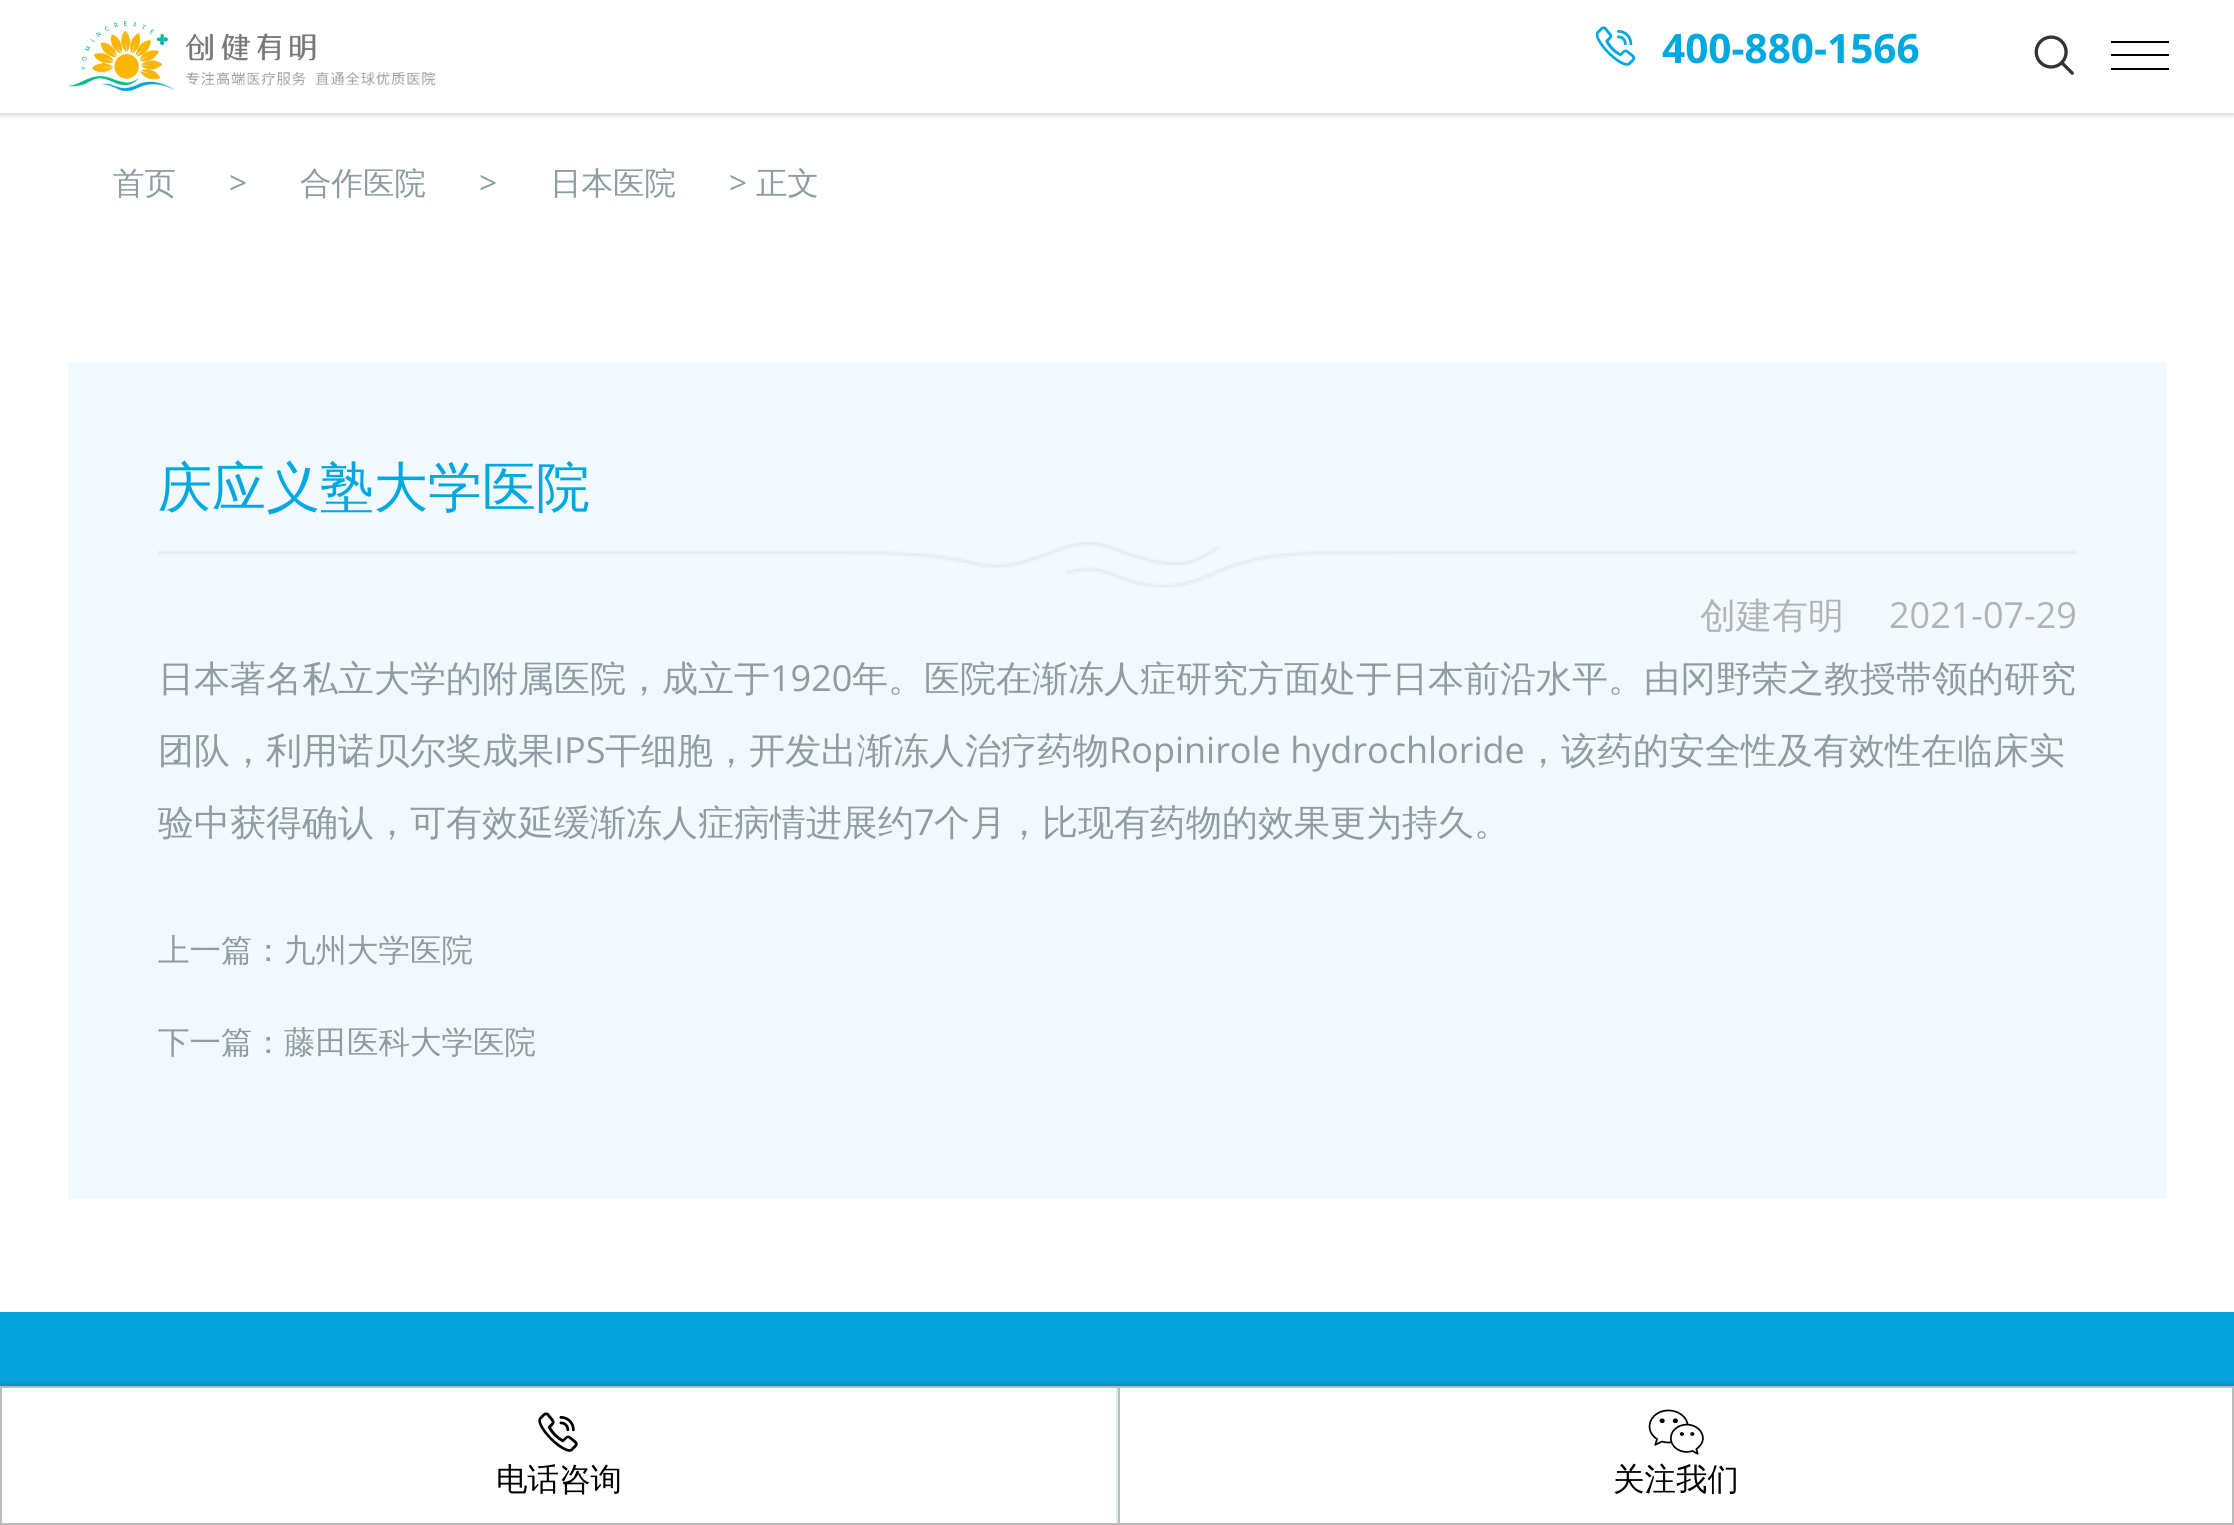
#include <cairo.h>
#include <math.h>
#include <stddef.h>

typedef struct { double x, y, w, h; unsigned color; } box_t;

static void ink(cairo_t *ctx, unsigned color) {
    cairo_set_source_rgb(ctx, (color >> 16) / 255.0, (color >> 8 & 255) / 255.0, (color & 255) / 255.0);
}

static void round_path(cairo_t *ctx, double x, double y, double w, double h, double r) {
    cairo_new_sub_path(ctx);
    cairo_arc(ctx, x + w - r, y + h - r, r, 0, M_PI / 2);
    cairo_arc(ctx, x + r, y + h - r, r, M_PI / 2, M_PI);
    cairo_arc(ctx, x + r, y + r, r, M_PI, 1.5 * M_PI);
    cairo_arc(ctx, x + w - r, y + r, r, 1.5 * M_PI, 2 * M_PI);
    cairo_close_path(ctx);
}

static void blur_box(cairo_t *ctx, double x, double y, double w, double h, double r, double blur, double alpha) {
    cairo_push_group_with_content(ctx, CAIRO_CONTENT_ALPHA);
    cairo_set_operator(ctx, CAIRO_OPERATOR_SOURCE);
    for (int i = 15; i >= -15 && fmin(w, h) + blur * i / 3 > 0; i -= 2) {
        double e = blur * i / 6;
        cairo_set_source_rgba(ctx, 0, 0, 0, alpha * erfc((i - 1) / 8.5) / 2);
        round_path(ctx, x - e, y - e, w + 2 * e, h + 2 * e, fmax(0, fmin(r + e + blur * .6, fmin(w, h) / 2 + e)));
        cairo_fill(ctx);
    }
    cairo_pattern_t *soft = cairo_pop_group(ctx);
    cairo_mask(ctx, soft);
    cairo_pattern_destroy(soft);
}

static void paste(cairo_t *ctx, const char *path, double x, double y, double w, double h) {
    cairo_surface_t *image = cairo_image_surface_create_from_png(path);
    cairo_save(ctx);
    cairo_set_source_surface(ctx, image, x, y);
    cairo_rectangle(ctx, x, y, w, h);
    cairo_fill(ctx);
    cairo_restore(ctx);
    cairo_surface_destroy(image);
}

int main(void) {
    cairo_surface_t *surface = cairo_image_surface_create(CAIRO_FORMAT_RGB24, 2234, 1525);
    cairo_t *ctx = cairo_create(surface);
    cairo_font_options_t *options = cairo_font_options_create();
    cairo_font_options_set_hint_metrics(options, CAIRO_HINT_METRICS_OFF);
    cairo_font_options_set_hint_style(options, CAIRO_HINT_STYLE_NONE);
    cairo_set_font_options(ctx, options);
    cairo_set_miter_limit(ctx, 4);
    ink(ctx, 0xFFFFFF);
    cairo_paint(ctx);
    ink(ctx, 0x000000);
    blur_box(ctx, 0, 0, 2234, 113, 0, 3.5, 0.3);
    ink(ctx, 0xFFFFFF);
    cairo_rectangle(ctx, 0, 0, 2234, 113);
    cairo_fill(ctx);
    paste(ctx, "media/1.png", 68, 20, 368, 72);
    paste(ctx, "media/2.png", 1595, 26, 41, 40);
    cairo_select_font_face(ctx, "Open Sans", CAIRO_FONT_SLANT_NORMAL, CAIRO_FONT_WEIGHT_BOLD);
    cairo_set_font_size(ctx, 40.5);
    ink(ctx, 0x00A8E1);
    cairo_move_to(ctx, 1662, 63);
    cairo_show_text(ctx, "400-880-1566");
    paste(ctx, "media/3.png", 2034, 35, 40, 40);
    {
        static const box_t items[] = {
            {2111, 54, 58, 2, 0x000000},
            {2111, 41, 58, 2, 0x000000},
            {2111, 68, 58, 2, 0x000000},
        };
        for (size_t i = 0; i < sizeof items / sizeof *items; i++) {
            ink(ctx, items[i].color);
            cairo_rectangle(ctx, items[i].x, items[i].y, items[i].w, items[i].h);
            cairo_fill(ctx);
        }
    }
    cairo_select_font_face(ctx, "WenQuanYi Zen Hei Medium", CAIRO_FONT_SLANT_NORMAL, CAIRO_FONT_WEIGHT_NORMAL);
    cairo_set_font_size(ctx, 31.5);
    ink(ctx, 0x8F9CA3);
    cairo_move_to(ctx, 113, 194);
    cairo_show_text(ctx, "首页");
    cairo_select_font_face(ctx, "Open Sans", CAIRO_FONT_SLANT_NORMAL, CAIRO_FONT_WEIGHT_NORMAL);
    cairo_move_to(ctx, 229, 194);
    cairo_show_text(ctx, ">");
    cairo_select_font_face(ctx, "WenQuanYi Zen Hei Medium", CAIRO_FONT_SLANT_NORMAL, CAIRO_FONT_WEIGHT_NORMAL);
    cairo_move_to(ctx, 300, 194);
    cairo_show_text(ctx, "合作医院");
    cairo_select_font_face(ctx, "Open Sans", CAIRO_FONT_SLANT_NORMAL, CAIRO_FONT_WEIGHT_NORMAL);
    cairo_move_to(ctx, 479, 194);
    cairo_show_text(ctx, ">");
    cairo_select_font_face(ctx, "WenQuanYi Zen Hei Medium", CAIRO_FONT_SLANT_NORMAL, CAIRO_FONT_WEIGHT_NORMAL);
    cairo_move_to(ctx, 550, 194);
    cairo_show_text(ctx, "日本医院");
    cairo_select_font_face(ctx, "Open Sans", CAIRO_FONT_SLANT_NORMAL, CAIRO_FONT_WEIGHT_NORMAL);
    cairo_move_to(ctx, 729, 194);
    cairo_show_text(ctx, ">");
    cairo_select_font_face(ctx, "WenQuanYi Zen Hei Medium", CAIRO_FONT_SLANT_NORMAL, CAIRO_FONT_WEIGHT_NORMAL);
    cairo_move_to(ctx, 756, 194);
    cairo_show_text(ctx, "正文");
    ink(ctx, 0xF2F9FF);
    cairo_rectangle(ctx, 68, 362, 2099, 837);
    cairo_fill(ctx);
    cairo_set_font_size(ctx, 54);
    ink(ctx, 0x00A8E1);
    cairo_move_to(ctx, 158, 506);
    cairo_show_text(ctx, "庆应义塾大学医院");
    paste(ctx, "media/4.png", 157, 542, 1920, 46);
    cairo_set_font_size(ctx, 36);
    ink(ctx, 0xB3B3B3);
    cairo_move_to(ctx, 1700, 628);
    cairo_show_text(ctx, "创建有明");
    cairo_select_font_face(ctx, "Open Sans", CAIRO_FONT_SLANT_NORMAL, CAIRO_FONT_WEIGHT_NORMAL);
    cairo_move_to(ctx, 1889, 628);
    cairo_show_text(ctx, "2021-07-29");
    cairo_select_font_face(ctx, "WenQuanYi Zen Hei Medium", CAIRO_FONT_SLANT_NORMAL, CAIRO_FONT_WEIGHT_NORMAL);
    ink(ctx, 0x8F9CA3);
    cairo_move_to(ctx, 158, 691);
    cairo_show_text(ctx, "日本著名私立大学的附属医院，成立于");
    cairo_select_font_face(ctx, "Open Sans", CAIRO_FONT_SLANT_NORMAL, CAIRO_FONT_WEIGHT_NORMAL);
    cairo_move_to(ctx, 770, 691);
    cairo_show_text(ctx, "1920");
    cairo_select_font_face(ctx, "WenQuanYi Zen Hei Medium", CAIRO_FONT_SLANT_NORMAL, CAIRO_FONT_WEIGHT_NORMAL);
    cairo_move_to(ctx, 852, 691);
    cairo_show_text(ctx, "年。医院在渐冻人症研究方面处于日本前沿水平。由冈野荣之教授带领的研究");
    cairo_move_to(ctx, 158, 763);
    cairo_show_text(ctx, "团队，利用诺贝尔奖成果");
    cairo_select_font_face(ctx, "Open Sans", CAIRO_FONT_SLANT_NORMAL, CAIRO_FONT_WEIGHT_NORMAL);
    cairo_move_to(ctx, 554, 763);
    cairo_show_text(ctx, "IPS");
    cairo_select_font_face(ctx, "WenQuanYi Zen Hei Medium", CAIRO_FONT_SLANT_NORMAL, CAIRO_FONT_WEIGHT_NORMAL);
    cairo_move_to(ctx, 605, 763);
    cairo_show_text(ctx, "干细胞，开发出渐冻人治疗药物");
    cairo_select_font_face(ctx, "Open Sans", CAIRO_FONT_SLANT_NORMAL, CAIRO_FONT_WEIGHT_NORMAL);
    cairo_move_to(ctx, 1109, 763);
    cairo_show_text(ctx, "Ropinirole hydrochloride");
    cairo_select_font_face(ctx, "WenQuanYi Zen Hei Medium", CAIRO_FONT_SLANT_NORMAL, CAIRO_FONT_WEIGHT_NORMAL);
    cairo_move_to(ctx, 1525, 763);
    cairo_show_text(ctx, "，该药的安全性及有效性在临床实");
    cairo_move_to(ctx, 158, 835);
    cairo_show_text(ctx, "验中获得确认，可有效延缓渐冻人症病情进展约");
    cairo_select_font_face(ctx, "Open Sans", CAIRO_FONT_SLANT_NORMAL, CAIRO_FONT_WEIGHT_NORMAL);
    cairo_move_to(ctx, 914, 835);
    cairo_show_text(ctx, "7");
    cairo_select_font_face(ctx, "WenQuanYi Zen Hei Medium", CAIRO_FONT_SLANT_NORMAL, CAIRO_FONT_WEIGHT_NORMAL);
    cairo_move_to(ctx, 934, 835);
    cairo_show_text(ctx, "个月，比现有药物的效果更为持久。");
    cairo_set_font_size(ctx, 31.5);
    cairo_move_to(ctx, 158, 961);
    cairo_show_text(ctx, "上一篇：九州大学医院");
    cairo_move_to(ctx, 158, 1053);
    cairo_show_text(ctx, "下一篇：藤田医科大学医院");
    ink(ctx, 0x07A3DE);
    cairo_rectangle(ctx, 0, 1312, 2234, 74);
    cairo_fill(ctx);
    ink(ctx, 0x000000);
    blur_box(ctx, 0, 1386, 2234, 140, 0, 3.5, 0.3);
    {
        static const box_t items[] = {
            {2, 1388, 2230, 135, 0xFFFFFF},
            {0, 1523, 2234, 2, 0xBBBBBB},
            {0, 1386, 2234, 2, 0xBBBBBB},
            {0, 1386, 2, 137, 0xBBBBBB},
            {1116, 1388, 2, 135, 0xDEECF2},
        };
        for (size_t i = 0; i < sizeof items / sizeof *items; i++) {
            ink(ctx, items[i].color);
            cairo_rectangle(ctx, items[i].x, items[i].y, items[i].w, items[i].h);
            cairo_fill(ctx);
        }
    }
    paste(ctx, "media/5.png", 538, 1412, 40, 40);
    ink(ctx, 0x000000);
    cairo_move_to(ctx, 496, 1490);
    cairo_show_text(ctx, "电话咨询");
    ink(ctx, 0xBBBBBB);
    cairo_rectangle(ctx, 2232, 1386, 2, 137);
    cairo_fill(ctx);
    cairo_rectangle(ctx, 1118, 1386, 2, 137);
    cairo_fill(ctx);
    paste(ctx, "media/6.png", 1648, 1409, 56, 46);
    ink(ctx, 0x000000);
    cairo_move_to(ctx, 1613, 1490);
    cairo_show_text(ctx, "关注我们");
    cairo_surface_write_to_png(surface, "image.png");
    cairo_font_options_destroy(options);
    cairo_destroy(ctx);
    cairo_surface_destroy(surface);
    return 0;
}
